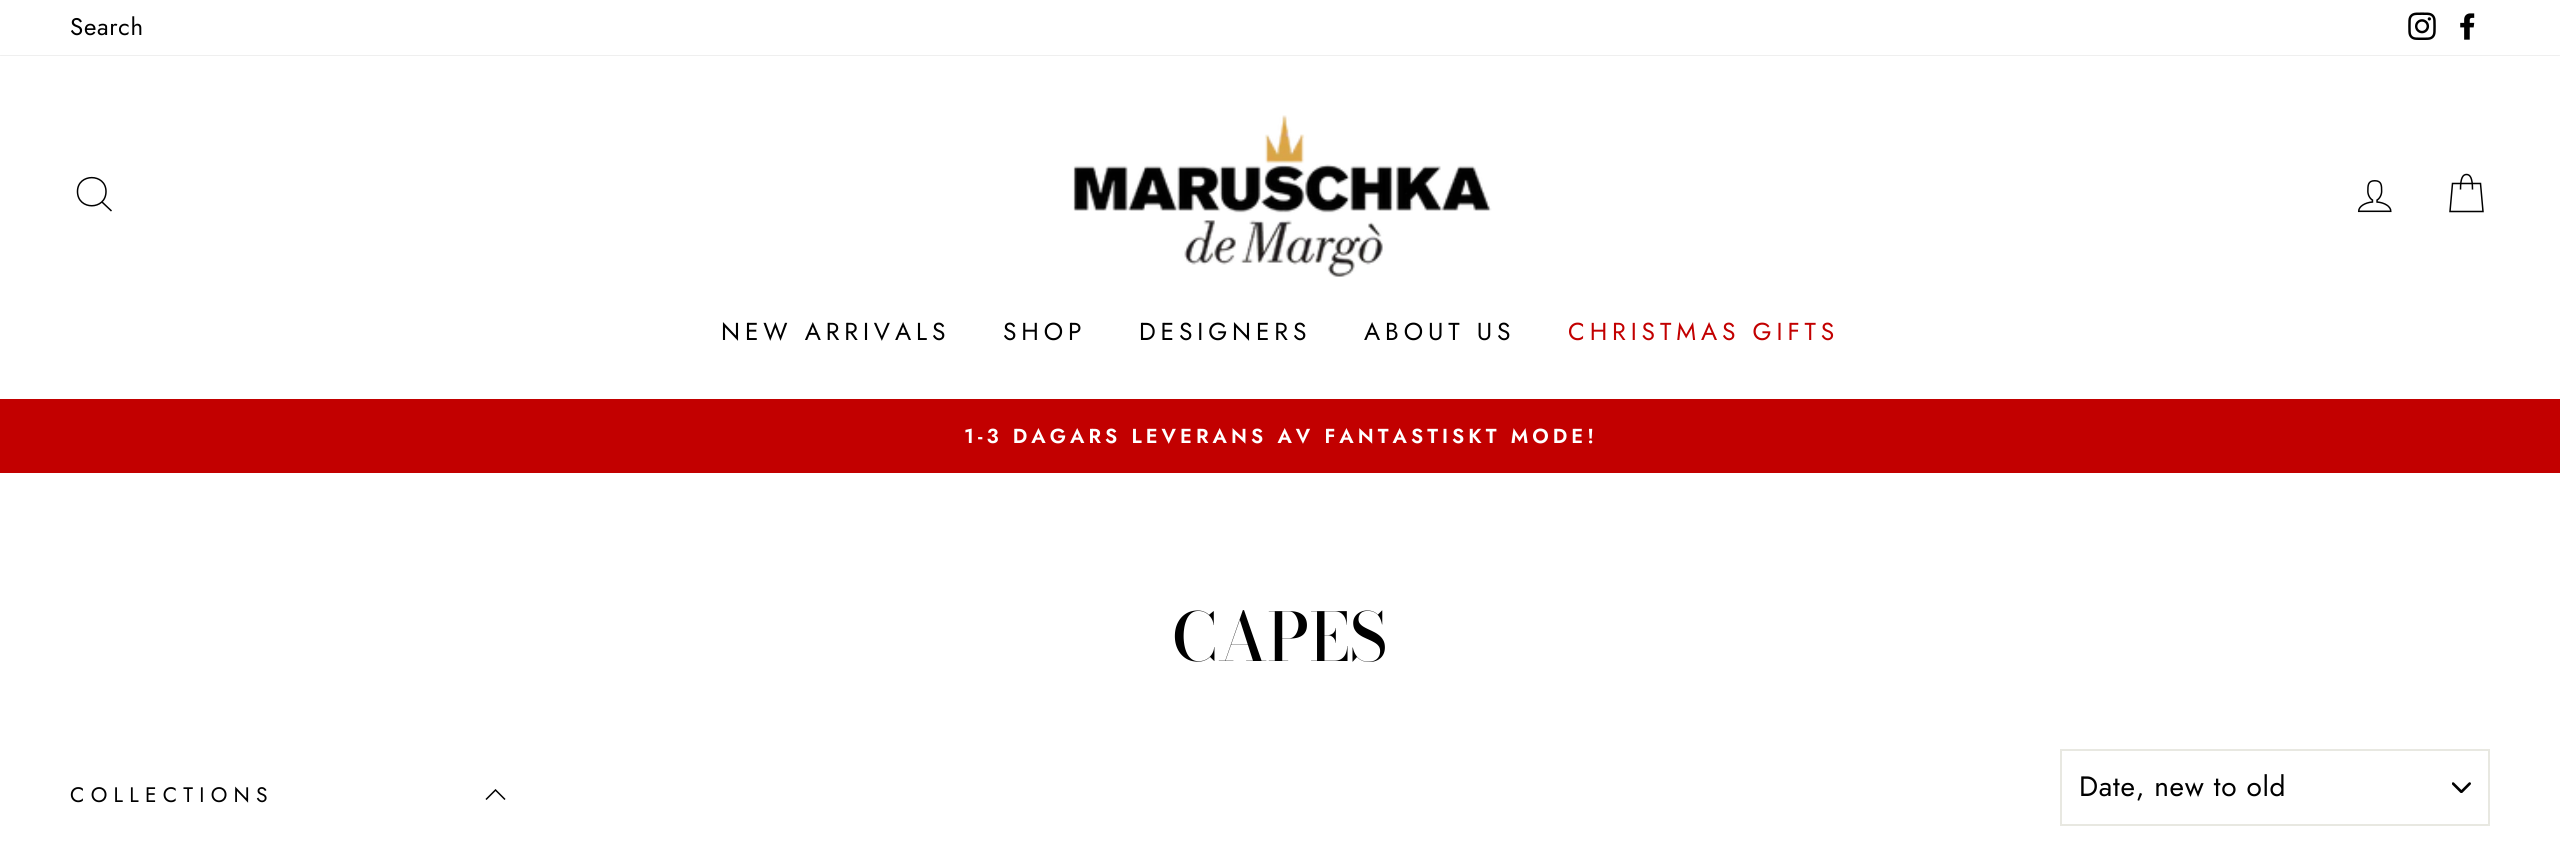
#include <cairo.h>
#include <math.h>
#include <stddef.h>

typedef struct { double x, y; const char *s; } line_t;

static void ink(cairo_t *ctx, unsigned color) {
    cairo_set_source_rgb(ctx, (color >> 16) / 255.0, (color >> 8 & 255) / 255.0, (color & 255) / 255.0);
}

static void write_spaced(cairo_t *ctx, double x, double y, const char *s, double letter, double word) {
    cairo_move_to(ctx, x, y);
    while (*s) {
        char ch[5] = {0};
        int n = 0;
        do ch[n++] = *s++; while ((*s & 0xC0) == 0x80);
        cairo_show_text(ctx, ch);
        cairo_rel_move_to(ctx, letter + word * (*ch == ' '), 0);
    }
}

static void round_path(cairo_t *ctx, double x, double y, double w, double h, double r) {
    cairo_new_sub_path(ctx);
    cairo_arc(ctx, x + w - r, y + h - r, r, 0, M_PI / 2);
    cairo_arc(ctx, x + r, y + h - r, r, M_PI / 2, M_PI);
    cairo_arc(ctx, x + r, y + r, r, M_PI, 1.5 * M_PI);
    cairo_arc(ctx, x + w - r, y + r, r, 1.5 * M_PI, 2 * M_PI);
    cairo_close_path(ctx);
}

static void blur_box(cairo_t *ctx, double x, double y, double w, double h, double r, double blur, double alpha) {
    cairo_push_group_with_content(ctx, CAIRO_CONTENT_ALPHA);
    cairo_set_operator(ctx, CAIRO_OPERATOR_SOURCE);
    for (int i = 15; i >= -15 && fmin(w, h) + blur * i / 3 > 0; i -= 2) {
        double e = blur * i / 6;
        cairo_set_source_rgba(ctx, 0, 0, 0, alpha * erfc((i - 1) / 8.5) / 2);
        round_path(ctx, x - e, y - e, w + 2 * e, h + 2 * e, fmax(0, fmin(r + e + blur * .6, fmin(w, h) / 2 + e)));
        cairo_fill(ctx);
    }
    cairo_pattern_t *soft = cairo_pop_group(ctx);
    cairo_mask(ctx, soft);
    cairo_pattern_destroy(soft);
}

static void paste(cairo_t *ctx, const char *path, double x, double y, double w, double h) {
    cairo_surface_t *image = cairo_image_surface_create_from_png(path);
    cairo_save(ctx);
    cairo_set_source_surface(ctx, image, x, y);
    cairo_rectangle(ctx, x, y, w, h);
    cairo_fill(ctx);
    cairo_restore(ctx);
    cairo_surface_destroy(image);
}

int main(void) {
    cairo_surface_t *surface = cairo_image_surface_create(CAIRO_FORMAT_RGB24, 2560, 862);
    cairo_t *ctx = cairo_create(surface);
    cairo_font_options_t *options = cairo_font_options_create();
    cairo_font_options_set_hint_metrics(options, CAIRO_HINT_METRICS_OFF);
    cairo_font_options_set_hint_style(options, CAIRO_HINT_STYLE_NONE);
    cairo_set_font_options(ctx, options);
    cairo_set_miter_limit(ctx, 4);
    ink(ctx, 0xFFFFFF);
    cairo_paint(ctx);
    cairo_select_font_face(ctx, "Jost", CAIRO_FONT_SLANT_NORMAL, CAIRO_FONT_WEIGHT_NORMAL);
    cairo_set_font_size(ctx, 24);
    ink(ctx, 0x000000);
    write_spaced(ctx, 70, 35, "Search", 0.75, 0);
    paste(ctx, "media/1.png", 2408, 12, 28, 28);
    paste(ctx, "media/2.png", 2460, 13, 15, 27);
    cairo_save(ctx);
    cairo_rectangle(ctx, 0, 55, 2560, 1);
    cairo_clip(ctx);
    ink(ctx, 0x000000);
    blur_box(ctx, 0, 56, 2560, 343, 0, 1, 0.2);
    cairo_restore(ctx);
    cairo_new_path(ctx);
    cairo_move_to(ctx, 106, 191.5);
    cairo_curve_to(ctx, 106, 210.5, 77.5, 210.5, 77.5, 191.5);
    cairo_curve_to(ctx, 77.5, 173, 106, 173, 106, 191.5);
    cairo_close_path(ctx);
    cairo_move_to(ctx, 111.5, 211);
    cairo_line_to(ctx, 102, 202);
    cairo_set_line_width(ctx, 1.5);
    cairo_stroke(ctx);
    paste(ctx, "media/3.png", 1073, 115, 419, 162);
    paste(ctx, "media/4.png", 2357, 180, 35, 33);
    cairo_new_path(ctx);
    cairo_move_to(ctx, 2460.5, 189.5);
    cairo_curve_to(ctx, 2460.5, 177.5, 2463, 174.5, 2466.5, 174.5);
    cairo_curve_to(ctx, 2470, 174.5, 2472.5, 177.5, 2472.5, 189.5);
    cairo_move_to(ctx, 2452.5, 183.5);
    cairo_line_to(ctx, 2480.5, 183.5);
    cairo_line_to(ctx, 2483, 211.5);
    cairo_line_to(ctx, 2450, 211.5);
    cairo_close_path(ctx);
    cairo_stroke(ctx);
    cairo_set_font_size(ctx, 24.5);
    {
        static const line_t items[] = {
            {721, 340, "NEW ARRIVALS"},
            {1003, 340, "SHOP"},
            {1139, 340, "DESIGNERS"},
            {1364, 340, "ABOUT US"},
        };
        for (size_t i = 0; i < sizeof items / sizeof *items; i++) {
            write_spaced(ctx, items[i].x, items[i].y, items[i].s, 4.9, 0);
        }
    }
    ink(ctx, 0xC20000);
    write_spaced(ctx, 1568, 340, "CHRISTMAS GIFTS", 4.9, 0);
    cairo_rectangle(ctx, 0, 399, 2560, 74);
    cairo_fill(ctx);
    cairo_select_font_face(ctx, "Jost SemiBold", CAIRO_FONT_SLANT_NORMAL, CAIRO_FONT_WEIGHT_NORMAL);
    cairo_set_font_size(ctx, 20.25);
    ink(ctx, 0xFFFFFF);
    write_spaced(ctx, 964, 443, "1-3 DAGARS LEVERANS AV FANTASTISKT MODE!", 4.05, 0);
    cairo_select_font_face(ctx, "Bodoni Moda Medium", CAIRO_FONT_SLANT_NORMAL, CAIRO_FONT_WEIGHT_NORMAL);
    cairo_set_font_size(ctx, 66.5);
    ink(ctx, 0x000000);
    cairo_move_to(ctx, 1172, 661);
    cairo_show_text(ctx, "CAPES");
    cairo_select_font_face(ctx, "Jost", CAIRO_FONT_SLANT_NORMAL, CAIRO_FONT_WEIGHT_NORMAL);
    cairo_set_font_size(ctx, 21);
    write_spaced(ctx, 70, 802, "COLLECTIONS", 6.25, 0);
    cairo_new_path(ctx);
    cairo_move_to(ctx, 486, 799.5);
    cairo_line_to(ctx, 495.5, 790);
    cairo_line_to(ctx, 505, 799.5);
    cairo_stroke(ctx);
    paste(ctx, "media/5.png", 2452, 782, 19, 11);
    cairo_rectangle(ctx, 2061, 750, 428, 75);
    ink(ctx, 0xE8E8E1);
    cairo_set_line_width(ctx, 2);
    cairo_stroke(ctx);
    cairo_set_font_size(ctx, 28);
    ink(ctx, 0x000000);
    write_spaced(ctx, 2079, 796, "Date, new to old", 0.75, 0);
    cairo_surface_write_to_png(surface, "image.png");
    cairo_font_options_destroy(options);
    cairo_destroy(ctx);
    cairo_surface_destroy(surface);
    return 0;
}
